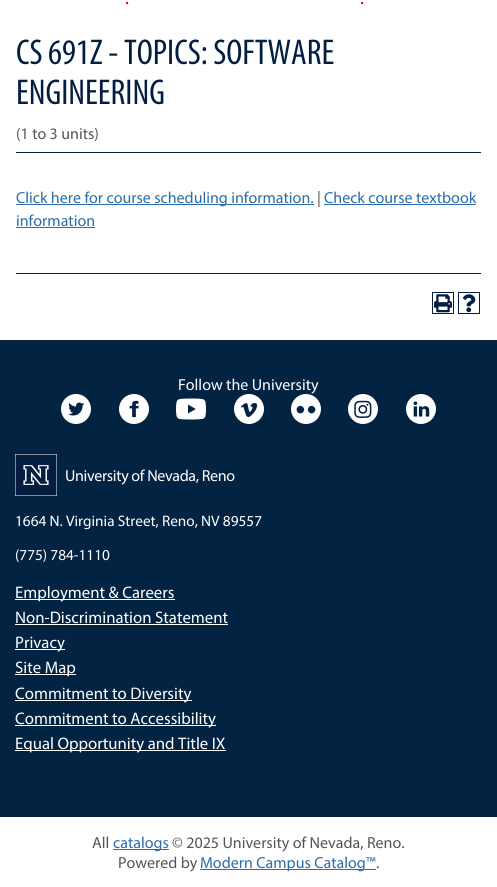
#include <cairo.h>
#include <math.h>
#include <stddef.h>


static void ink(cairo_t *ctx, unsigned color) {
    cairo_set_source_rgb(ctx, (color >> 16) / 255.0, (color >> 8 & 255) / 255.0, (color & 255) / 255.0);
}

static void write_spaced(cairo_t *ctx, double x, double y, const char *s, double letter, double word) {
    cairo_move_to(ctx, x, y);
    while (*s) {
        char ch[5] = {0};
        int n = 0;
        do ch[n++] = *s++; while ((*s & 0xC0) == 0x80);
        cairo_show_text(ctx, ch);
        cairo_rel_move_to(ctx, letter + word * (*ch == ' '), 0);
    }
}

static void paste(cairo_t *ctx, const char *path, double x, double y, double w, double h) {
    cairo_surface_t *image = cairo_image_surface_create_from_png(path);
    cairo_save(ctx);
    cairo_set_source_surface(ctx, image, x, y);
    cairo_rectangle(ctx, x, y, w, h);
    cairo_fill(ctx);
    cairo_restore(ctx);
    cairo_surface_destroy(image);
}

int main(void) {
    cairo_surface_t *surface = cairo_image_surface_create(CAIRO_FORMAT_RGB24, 497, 887);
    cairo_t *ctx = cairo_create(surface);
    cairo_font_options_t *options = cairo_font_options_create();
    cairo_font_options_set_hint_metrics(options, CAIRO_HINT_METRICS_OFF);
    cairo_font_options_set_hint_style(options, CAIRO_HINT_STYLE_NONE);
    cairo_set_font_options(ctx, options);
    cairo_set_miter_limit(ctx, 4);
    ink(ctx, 0xFFFFFF);
    cairo_paint(ctx);
    cairo_select_font_face(ctx, "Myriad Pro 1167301", CAIRO_FONT_SLANT_NORMAL, CAIRO_FONT_WEIGHT_NORMAL);
    cairo_set_font_size(ctx, 19);
    ink(ctx, 0xE00000);
    cairo_move_to(ctx, 125, 4);
    cairo_show_text(ctx, ".");
    cairo_move_to(ctx, 360, 4);
    cairo_show_text(ctx, ".");
    cairo_select_font_face(ctx, "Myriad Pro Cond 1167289", CAIRO_FONT_SLANT_NORMAL, CAIRO_FONT_WEIGHT_NORMAL);
    cairo_set_font_size(ctx, 36);
    ink(ctx, 0x041E42);
    cairo_move_to(ctx, 16, 64);
    cairo_show_text(ctx, "CS 691Z - TOPICS: SOFTWARE");
    cairo_move_to(ctx, 16, 104);
    cairo_show_text(ctx, "ENGINEERING");
    cairo_select_font_face(ctx, "Myriad Pro 1167301", CAIRO_FONT_SLANT_NORMAL, CAIRO_FONT_WEIGHT_NORMAL);
    cairo_set_font_size(ctx, 16);
    ink(ctx, 0x555555);
    cairo_move_to(ctx, 16, 139);
    cairo_show_text(ctx, "(1 to 3 units)");
    ink(ctx, 0x041E42);
    cairo_rectangle(ctx, 16, 152, 465, 1);
    cairo_fill(ctx);
    ink(ctx, 0x296DAC);
    cairo_rectangle(ctx, 16, 204, 298, 1);
    cairo_fill(ctx);
    cairo_move_to(ctx, 16, 203);
    cairo_show_text(ctx, "Click here for course scheduling information.");
    ink(ctx, 0x555555);
    cairo_move_to(ctx, 317, 203);
    cairo_show_text(ctx, "|");
    ink(ctx, 0x296DAC);
    cairo_move_to(ctx, 324, 203);
    cairo_show_text(ctx, "Check course textbook");
    cairo_rectangle(ctx, 324, 204, 152, 1);
    cairo_fill(ctx);
    cairo_move_to(ctx, 16, 226);
    cairo_show_text(ctx, "information");
    cairo_rectangle(ctx, 16, 227, 79, 1);
    cairo_fill(ctx);
    ink(ctx, 0x041E42);
    cairo_rectangle(ctx, 16, 273, 465, 1);
    cairo_fill(ctx);
    cairo_rectangle(ctx, 432.5, 292.5, 21, 21);
    cairo_set_line_width(ctx, 1);
    cairo_stroke(ctx);
    paste(ctx, "media/1.png", 434, 294, 18, 19);
    cairo_rectangle(ctx, 458.5, 292.5, 21, 21);
    cairo_stroke(ctx);
    paste(ctx, "media/2.png", 463, 294, 13, 19);
    ink(ctx, 0x022342);
    cairo_rectangle(ctx, 0, 340, 497, 477);
    cairo_fill(ctx);
    ink(ctx, 0xFFFFFF);
    cairo_move_to(ctx, 178, 390);
    cairo_show_text(ctx, "Follow the University");
    paste(ctx, "media/3.png", 61, 394, 30, 30);
    paste(ctx, "media/4.png", 119, 394, 30, 30);
    paste(ctx, "media/5.png", 176, 398, 30, 22);
    paste(ctx, "media/6.png", 234, 394, 30, 30);
    paste(ctx, "media/7.png", 291, 394, 30, 30);
    paste(ctx, "media/8.png", 348, 394, 30, 30);
    paste(ctx, "media/9.png", 406, 394, 30, 30);
    paste(ctx, "media/10.png", 15, 454, 42, 42);
    write_spaced(ctx, 65, 481, "University of Nevada, Reno", -0.35, 0);
    cairo_set_font_size(ctx, 15.25);
    cairo_move_to(ctx, 15, 526);
    cairo_show_text(ctx, "1664 N. Virginia Street, Reno, NV 89557");
    cairo_move_to(ctx, 15, 560);
    cairo_show_text(ctx, "(775) 784-1110");
    cairo_rectangle(ctx, 15, 599, 160, 1);
    cairo_fill(ctx);
    cairo_set_font_size(ctx, 16.75);
    cairo_move_to(ctx, 15, 598);
    cairo_show_text(ctx, "Employment & Careers");
    cairo_move_to(ctx, 15, 623);
    cairo_show_text(ctx, "Non-Discrimination Statement");
    cairo_rectangle(ctx, 15, 624, 213, 1);
    cairo_fill(ctx);
    cairo_rectangle(ctx, 15, 649, 50, 1);
    cairo_fill(ctx);
    cairo_move_to(ctx, 15, 648);
    cairo_show_text(ctx, "Privacy");
    cairo_rectangle(ctx, 15, 674, 61, 1);
    cairo_fill(ctx);
    cairo_move_to(ctx, 15, 673);
    cairo_show_text(ctx, "Site Map");
    cairo_rectangle(ctx, 15, 700, 177, 1);
    cairo_fill(ctx);
    cairo_move_to(ctx, 15, 699);
    cairo_show_text(ctx, "Commitment to Diversity");
    cairo_rectangle(ctx, 15, 725, 201, 1);
    cairo_fill(ctx);
    cairo_move_to(ctx, 15, 724);
    cairo_show_text(ctx, "Commitment to Accessibility");
    cairo_rectangle(ctx, 15, 750, 211, 1);
    cairo_fill(ctx);
    cairo_move_to(ctx, 15, 749);
    cairo_show_text(ctx, "Equal Opportunity and Title IX");
    cairo_set_font_size(ctx, 16);
    ink(ctx, 0x555555);
    cairo_move_to(ctx, 92, 848);
    cairo_show_text(ctx, "All");
    ink(ctx, 0x296DAC);
    cairo_rectangle(ctx, 113, 849, 56, 1);
    cairo_fill(ctx);
    cairo_move_to(ctx, 113, 848);
    cairo_show_text(ctx, "catalogs");
    ink(ctx, 0x555555);
    cairo_move_to(ctx, 172, 848);
    cairo_show_text(ctx, "© 2025 University of Nevada, Reno.");
    cairo_move_to(ctx, 118, 868);
    cairo_show_text(ctx, "Powered by");
    ink(ctx, 0x296DAC);
    cairo_rectangle(ctx, 200, 869, 176, 1);
    cairo_fill(ctx);
    cairo_move_to(ctx, 200, 868);
    cairo_show_text(ctx, "Modern Campus Catalog™");
    ink(ctx, 0x555555);
    cairo_move_to(ctx, 376, 868);
    cairo_show_text(ctx, ".");
    cairo_surface_write_to_png(surface, "image.png");
    cairo_font_options_destroy(options);
    cairo_destroy(ctx);
    cairo_surface_destroy(surface);
    return 0;
}
